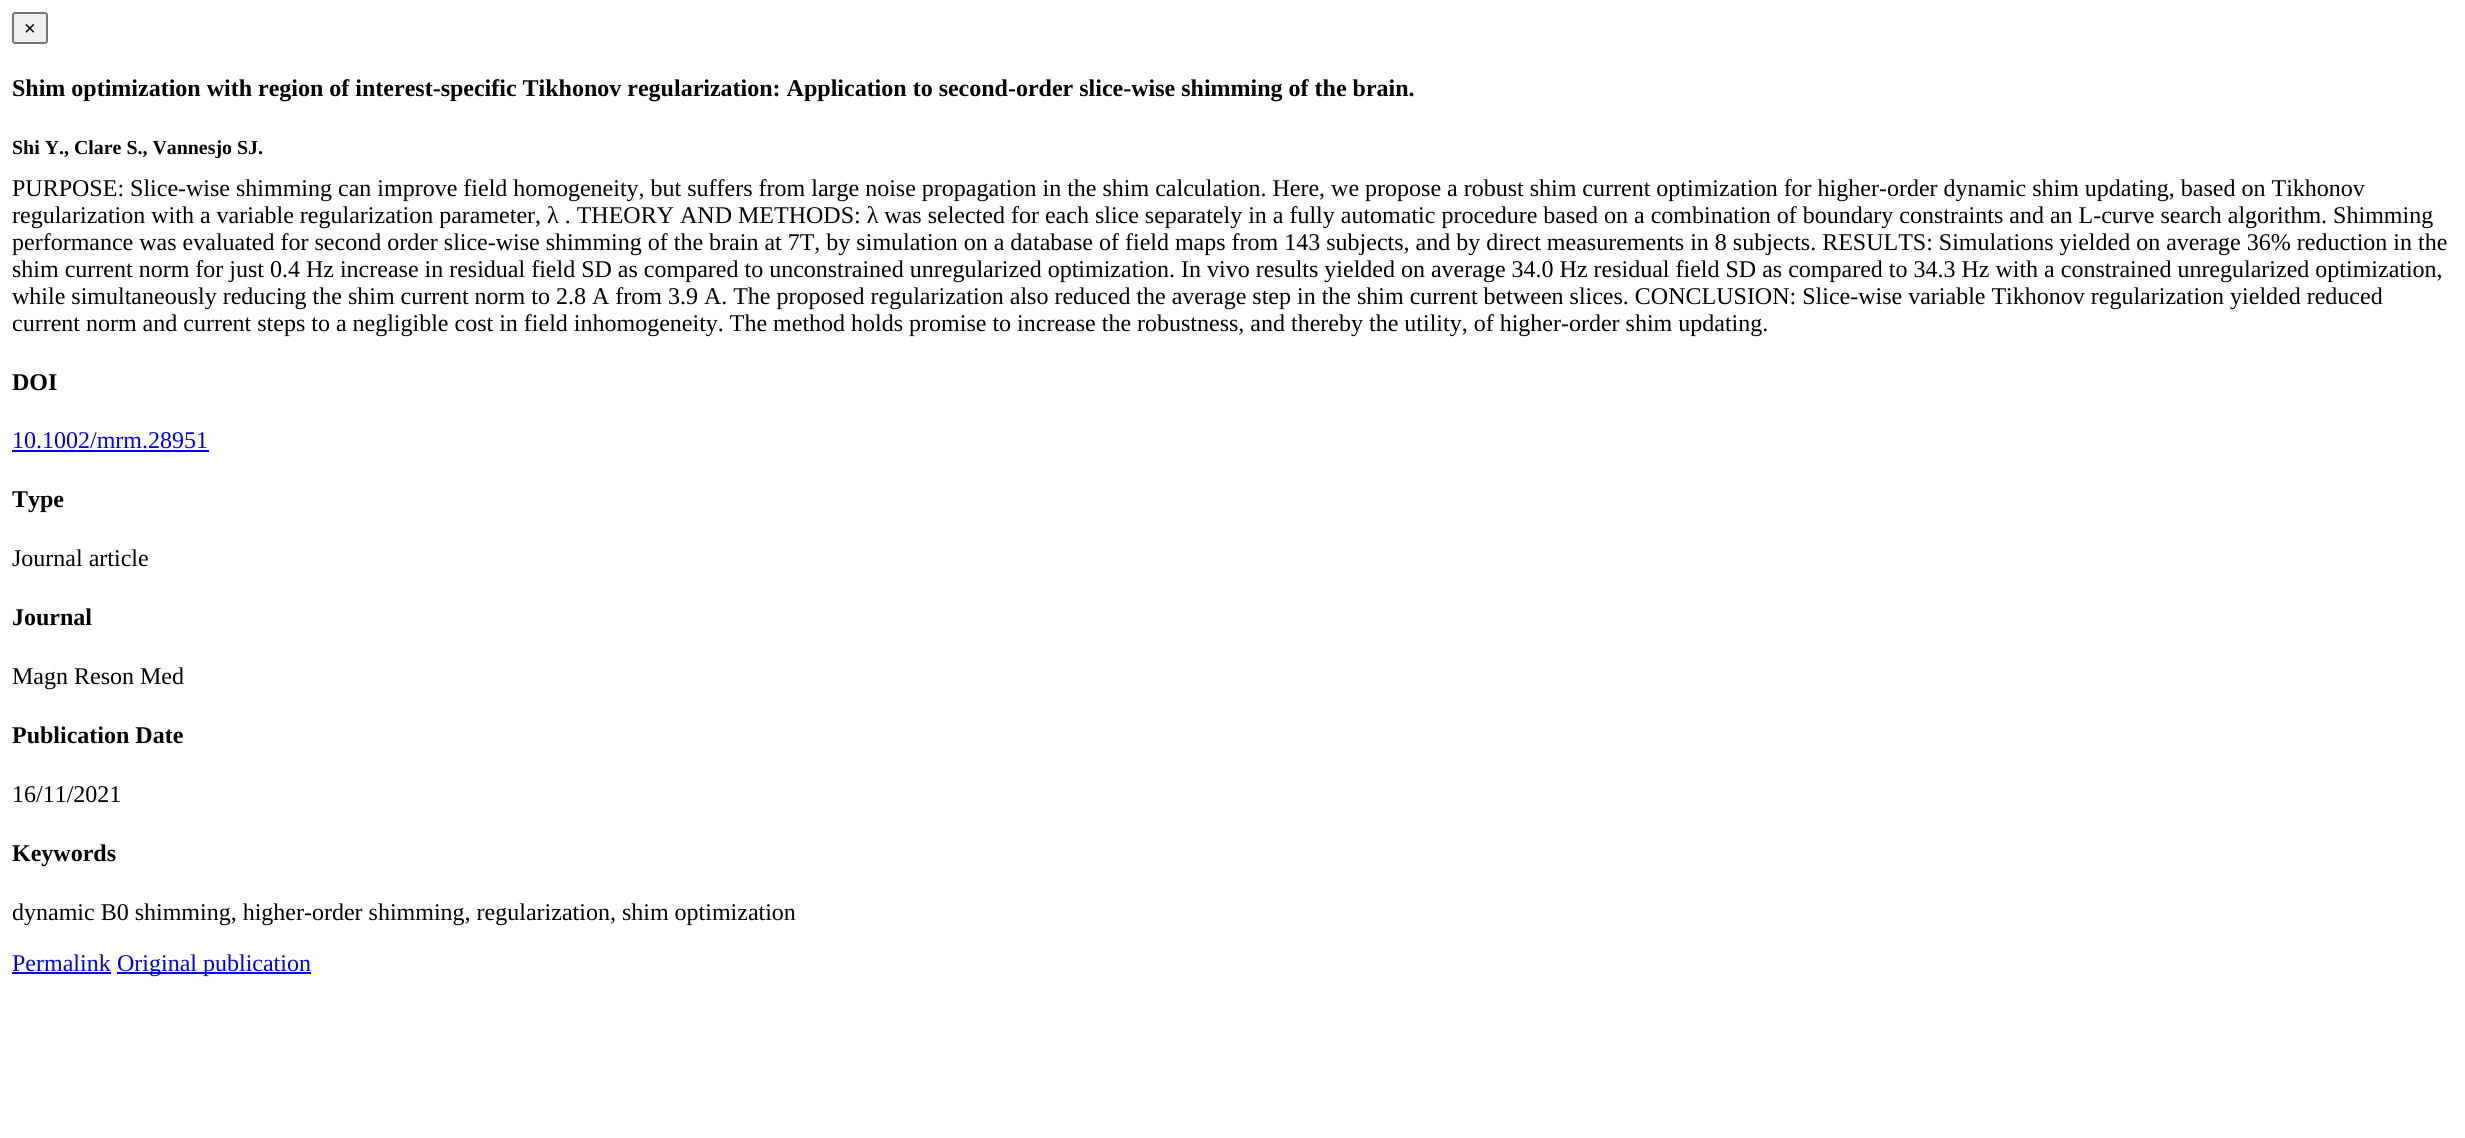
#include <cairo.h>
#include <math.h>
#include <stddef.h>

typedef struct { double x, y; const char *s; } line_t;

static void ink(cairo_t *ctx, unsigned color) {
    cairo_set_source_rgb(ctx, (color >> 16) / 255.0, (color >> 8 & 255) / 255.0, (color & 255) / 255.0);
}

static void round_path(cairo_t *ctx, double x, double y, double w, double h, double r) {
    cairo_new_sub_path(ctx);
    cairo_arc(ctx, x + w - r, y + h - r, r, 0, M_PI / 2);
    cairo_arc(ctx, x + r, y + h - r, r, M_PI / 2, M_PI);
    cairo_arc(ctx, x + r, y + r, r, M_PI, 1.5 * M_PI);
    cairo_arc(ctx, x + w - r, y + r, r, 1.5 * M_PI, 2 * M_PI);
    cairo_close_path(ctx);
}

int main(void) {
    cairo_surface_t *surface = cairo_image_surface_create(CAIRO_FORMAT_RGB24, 2465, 1138);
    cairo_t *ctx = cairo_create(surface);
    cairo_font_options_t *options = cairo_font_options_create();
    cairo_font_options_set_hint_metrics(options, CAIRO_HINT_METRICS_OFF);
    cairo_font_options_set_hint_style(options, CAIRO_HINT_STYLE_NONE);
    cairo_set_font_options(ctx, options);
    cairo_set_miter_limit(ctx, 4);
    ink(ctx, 0xFFFFFF);
    cairo_paint(ctx);
    ink(ctx, 0xEFEFEF);
    round_path(ctx, 13, 13, 34, 30, 2);
    cairo_fill_preserve(ctx);
    ink(ctx, 0x767676);
    cairo_stroke(ctx);
    cairo_select_font_face(ctx, "Liberation Sans", CAIRO_FONT_SLANT_NORMAL, CAIRO_FONT_WEIGHT_NORMAL);
    cairo_set_font_size(ctx, 20);
    ink(ctx, 0x000000);
    cairo_move_to(ctx, 24, 35);
    cairo_show_text(ctx, "×");
    cairo_select_font_face(ctx, "Liberation Serif", CAIRO_FONT_SLANT_NORMAL, CAIRO_FONT_WEIGHT_BOLD);
    cairo_set_font_size(ctx, 24);
    cairo_move_to(ctx, 12, 96);
    cairo_show_text(ctx, "Shim optimization with region of interest-specific Tikhonov regularization: Application to second-order slice-wise shimming of the brain.");
    cairo_set_font_size(ctx, 19.9);
    cairo_move_to(ctx, 12, 154);
    cairo_show_text(ctx, "Shi Y., Clare S., Vannesjo SJ.");
    cairo_select_font_face(ctx, "Liberation Serif", CAIRO_FONT_SLANT_NORMAL, CAIRO_FONT_WEIGHT_NORMAL);
    cairo_set_font_size(ctx, 24);
    {
        static const line_t items[] = {
            {12, 196, "PURPOSE: Slice-wise shimming can improve field homogeneity, but suffers from large noise propagation in the shim calculation. Here, we propose a robust shim current optimization for higher-order dynamic shim updating, based on Tikhonov"},
            {12, 223, "regularization with a variable regularization parameter, λ . THEORY AND METHODS: λ was selected for each slice separately in a fully automatic procedure based on a combination of boundary constraints and an L-curve search algorithm. Shimming"},
            {12, 250, "performance was evaluated for second order slice-wise shimming of the brain at 7T, by simulation on a database of field maps from 143 subjects, and by direct measurements in 8 subjects. RESULTS: Simulations yielded on average 36% reduction in the"},
            {12, 277, "shim current norm for just 0.4 Hz increase in residual field SD as compared to unconstrained unregularized optimization. In vivo results yielded on average 34.0 Hz residual field SD as compared to 34.3 Hz with a constrained unregularized optimization,"},
            {12, 304, "while simultaneously reducing the shim current norm to 2.8 A from 3.9 A. The proposed regularization also reduced the average step in the shim current between slices. CONCLUSION: Slice-wise variable Tikhonov regularization yielded reduced"},
            {12, 331, "current norm and current steps to a negligible cost in field inhomogeneity. The method holds promise to increase the robustness, and thereby the utility, of higher-order shim updating."},
        };
        for (size_t i = 0; i < sizeof items / sizeof *items; i++) {
            cairo_move_to(ctx, items[i].x, items[i].y);
            cairo_show_text(ctx, items[i].s);
        }
    }
    cairo_select_font_face(ctx, "Liberation Serif", CAIRO_FONT_SLANT_NORMAL, CAIRO_FONT_WEIGHT_BOLD);
    cairo_move_to(ctx, 12, 390);
    cairo_show_text(ctx, "DOI");
    cairo_select_font_face(ctx, "Liberation Serif", CAIRO_FONT_SLANT_NORMAL, CAIRO_FONT_WEIGHT_NORMAL);
    ink(ctx, 0x0000EE);
    cairo_move_to(ctx, 12, 448);
    cairo_show_text(ctx, "10.1002/mrm.28951");
    cairo_rectangle(ctx, 12, 450, 197, 2);
    cairo_fill(ctx);
    cairo_select_font_face(ctx, "Liberation Serif", CAIRO_FONT_SLANT_NORMAL, CAIRO_FONT_WEIGHT_BOLD);
    ink(ctx, 0x000000);
    cairo_move_to(ctx, 12, 507);
    cairo_show_text(ctx, "Type");
    cairo_select_font_face(ctx, "Liberation Serif", CAIRO_FONT_SLANT_NORMAL, CAIRO_FONT_WEIGHT_NORMAL);
    cairo_move_to(ctx, 12, 566);
    cairo_show_text(ctx, "Journal article");
    cairo_select_font_face(ctx, "Liberation Serif", CAIRO_FONT_SLANT_NORMAL, CAIRO_FONT_WEIGHT_BOLD);
    cairo_move_to(ctx, 12, 625);
    cairo_show_text(ctx, "Journal");
    cairo_select_font_face(ctx, "Liberation Serif", CAIRO_FONT_SLANT_NORMAL, CAIRO_FONT_WEIGHT_NORMAL);
    cairo_move_to(ctx, 12, 684);
    cairo_show_text(ctx, "Magn Reson Med");
    cairo_select_font_face(ctx, "Liberation Serif", CAIRO_FONT_SLANT_NORMAL, CAIRO_FONT_WEIGHT_BOLD);
    cairo_move_to(ctx, 12, 743);
    cairo_show_text(ctx, "Publication Date");
    cairo_select_font_face(ctx, "Liberation Serif", CAIRO_FONT_SLANT_NORMAL, CAIRO_FONT_WEIGHT_NORMAL);
    cairo_move_to(ctx, 12, 802);
    cairo_show_text(ctx, "16/11/2021");
    cairo_select_font_face(ctx, "Liberation Serif", CAIRO_FONT_SLANT_NORMAL, CAIRO_FONT_WEIGHT_BOLD);
    cairo_move_to(ctx, 12, 861);
    cairo_show_text(ctx, "Keywords");
    cairo_select_font_face(ctx, "Liberation Serif", CAIRO_FONT_SLANT_NORMAL, CAIRO_FONT_WEIGHT_NORMAL);
    cairo_move_to(ctx, 12, 920);
    cairo_show_text(ctx, "dynamic B0 shimming, higher-order shimming, regularization, shim optimization");
    ink(ctx, 0x0000EE);
    cairo_move_to(ctx, 12, 971);
    cairo_show_text(ctx, "Permalink");
    cairo_rectangle(ctx, 12, 972, 99, 2);
    cairo_fill(ctx);
    cairo_rectangle(ctx, 117, 972, 194, 2);
    cairo_fill(ctx);
    cairo_move_to(ctx, 117, 971);
    cairo_show_text(ctx, "Original publication");
    cairo_surface_write_to_png(surface, "image.png");
    cairo_font_options_destroy(options);
    cairo_destroy(ctx);
    cairo_surface_destroy(surface);
    return 0;
}
